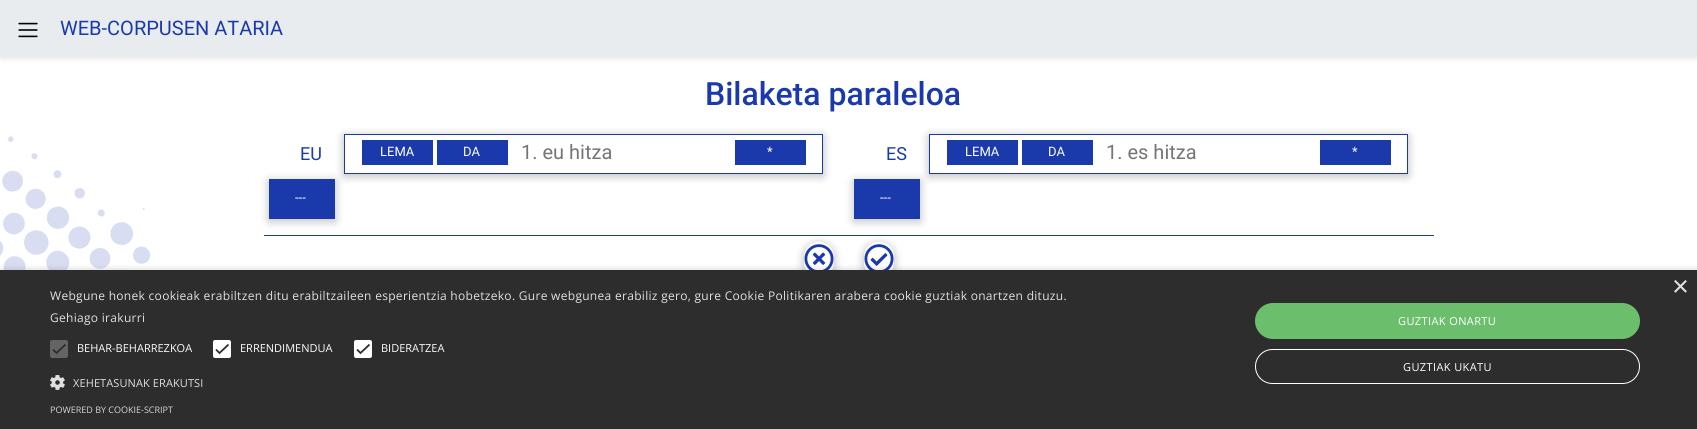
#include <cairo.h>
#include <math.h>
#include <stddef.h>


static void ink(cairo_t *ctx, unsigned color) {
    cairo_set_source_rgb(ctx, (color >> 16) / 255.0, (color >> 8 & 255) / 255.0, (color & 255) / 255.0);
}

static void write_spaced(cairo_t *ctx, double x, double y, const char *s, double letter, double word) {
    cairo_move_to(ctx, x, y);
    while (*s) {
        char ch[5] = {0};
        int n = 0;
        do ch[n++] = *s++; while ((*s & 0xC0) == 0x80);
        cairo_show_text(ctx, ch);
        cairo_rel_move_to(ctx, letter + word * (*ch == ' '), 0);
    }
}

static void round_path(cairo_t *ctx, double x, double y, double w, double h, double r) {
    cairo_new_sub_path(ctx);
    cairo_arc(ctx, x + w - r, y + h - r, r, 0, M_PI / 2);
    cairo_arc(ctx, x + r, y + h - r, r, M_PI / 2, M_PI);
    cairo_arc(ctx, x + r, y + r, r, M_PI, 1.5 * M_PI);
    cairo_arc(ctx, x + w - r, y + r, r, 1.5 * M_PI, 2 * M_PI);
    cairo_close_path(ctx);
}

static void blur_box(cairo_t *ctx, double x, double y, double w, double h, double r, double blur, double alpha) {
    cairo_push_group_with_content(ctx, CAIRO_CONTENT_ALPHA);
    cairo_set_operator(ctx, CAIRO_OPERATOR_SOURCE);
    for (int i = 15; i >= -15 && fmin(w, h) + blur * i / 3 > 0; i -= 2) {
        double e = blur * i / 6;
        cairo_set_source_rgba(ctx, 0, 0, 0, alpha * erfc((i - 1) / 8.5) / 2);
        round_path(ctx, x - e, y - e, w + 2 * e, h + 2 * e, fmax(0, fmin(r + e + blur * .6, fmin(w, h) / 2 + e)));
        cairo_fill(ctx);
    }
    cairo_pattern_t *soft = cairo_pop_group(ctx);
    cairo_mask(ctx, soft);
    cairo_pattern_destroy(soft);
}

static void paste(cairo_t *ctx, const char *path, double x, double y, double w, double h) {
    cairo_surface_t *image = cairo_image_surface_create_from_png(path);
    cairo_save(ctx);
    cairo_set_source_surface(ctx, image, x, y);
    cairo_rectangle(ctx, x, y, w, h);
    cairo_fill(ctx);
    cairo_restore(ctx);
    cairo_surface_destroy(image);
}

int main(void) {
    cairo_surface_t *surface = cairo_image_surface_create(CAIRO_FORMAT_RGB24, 1697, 429);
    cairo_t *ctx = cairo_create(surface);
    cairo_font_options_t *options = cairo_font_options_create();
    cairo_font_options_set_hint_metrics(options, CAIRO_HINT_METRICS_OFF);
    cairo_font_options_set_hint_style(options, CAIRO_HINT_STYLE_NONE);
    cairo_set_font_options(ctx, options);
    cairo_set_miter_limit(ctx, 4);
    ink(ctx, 0xFFFFFF);
    cairo_paint(ctx);
    paste(ctx, "media/1.png", 0, 136, 164, 134);
    ink(ctx, 0x000000);
    blur_box(ctx, 0, 3, 1697, 56, 0, 2.5, 0.1);
    ink(ctx, 0xE9ECEF);
    cairo_rectangle(ctx, 0, 0, 1697, 56);
    cairo_fill(ctx);
    paste(ctx, "media/2.png", 18, 22, 20, 16);
    cairo_select_font_face(ctx, "Roboto", CAIRO_FONT_SLANT_NORMAL, CAIRO_FONT_WEIGHT_NORMAL);
    cairo_set_font_size(ctx, 20);
    ink(ctx, 0x1A3AAB);
    cairo_move_to(ctx, 60, 35);
    cairo_show_text(ctx, "WEB-CORPUSEN ATARIA");
    cairo_select_font_face(ctx, "Roboto Medium", CAIRO_FONT_SLANT_NORMAL, CAIRO_FONT_WEIGHT_NORMAL);
    cairo_set_font_size(ctx, 32);
    cairo_move_to(ctx, 705, 105);
    cairo_show_text(ctx, "Bilaketa paraleloa");
    cairo_select_font_face(ctx, "Roboto", CAIRO_FONT_SLANT_NORMAL, CAIRO_FONT_WEIGHT_NORMAL);
    cairo_set_font_size(ctx, 18);
    cairo_move_to(ctx, 300, 160);
    cairo_show_text(ctx, "EU");
    cairo_save(ctx);
    cairo_set_fill_rule(ctx, CAIRO_FILL_RULE_EVEN_ODD);
    cairo_new_path(ctx);
    cairo_move_to(ctx, 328, 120);
    cairo_line_to(ctx, 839, 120);
    cairo_line_to(ctx, 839, 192);
    cairo_line_to(ctx, 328, 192);
    cairo_close_path(ctx);
    cairo_move_to(ctx, 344, 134);
    cairo_line_to(ctx, 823, 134);
    cairo_line_to(ctx, 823, 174);
    cairo_line_to(ctx, 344, 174);
    cairo_close_path(ctx);
    cairo_clip(ctx);
    ink(ctx, 0x000000);
    blur_box(ctx, 344, 136, 479, 40, 0, 5, 0.12);
    blur_box(ctx, 344, 136, 479, 40, 0, 5, 0.16);
    cairo_restore(ctx);
    cairo_rectangle(ctx, 344.5, 134.5, 478, 39);
    cairo_set_line_width(ctx, 1);
    cairo_stroke(ctx);
    cairo_rectangle(ctx, 362, 140, 71, 25);
    cairo_fill(ctx);
    cairo_set_font_size(ctx, 13);
    ink(ctx, 0xFFFFFF);
    cairo_move_to(ctx, 380, 156);
    cairo_show_text(ctx, "LEMA");
    ink(ctx, 0x1A3AAB);
    cairo_rectangle(ctx, 437, 140, 71, 25);
    cairo_fill(ctx);
    ink(ctx, 0xFFFFFF);
    cairo_move_to(ctx, 463, 156);
    cairo_show_text(ctx, "DA");
    cairo_set_font_size(ctx, 20);
    ink(ctx, 0x757575);
    cairo_move_to(ctx, 521, 159);
    cairo_show_text(ctx, "1. eu hitza");
    ink(ctx, 0x1A3AAB);
    cairo_rectangle(ctx, 735, 140, 71, 25);
    cairo_fill(ctx);
    cairo_set_font_size(ctx, 13);
    ink(ctx, 0xFFFFFF);
    cairo_move_to(ctx, 767, 156);
    cairo_show_text(ctx, "*");
    ink(ctx, 0x000000);
    blur_box(ctx, 269, 181, 66, 40, 0, 5, 0.12);
    blur_box(ctx, 269, 181, 66, 40, 0, 5, 0.16);
    ink(ctx, 0x1A3AAB);
    cairo_rectangle(ctx, 269, 179, 66, 40);
    cairo_fill(ctx);
    ink(ctx, 0xFFFFFF);
    cairo_move_to(ctx, 295, 202);
    cairo_show_text(ctx, "---");
    cairo_set_font_size(ctx, 18);
    ink(ctx, 0x1A3AAB);
    cairo_move_to(ctx, 886, 160);
    cairo_show_text(ctx, "ES");
    cairo_save(ctx);
    cairo_set_fill_rule(ctx, CAIRO_FILL_RULE_EVEN_ODD);
    cairo_new_path(ctx);
    cairo_move_to(ctx, 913, 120);
    cairo_line_to(ctx, 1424, 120);
    cairo_line_to(ctx, 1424, 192);
    cairo_line_to(ctx, 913, 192);
    cairo_close_path(ctx);
    cairo_move_to(ctx, 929, 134);
    cairo_line_to(ctx, 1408, 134);
    cairo_line_to(ctx, 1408, 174);
    cairo_line_to(ctx, 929, 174);
    cairo_close_path(ctx);
    cairo_clip(ctx);
    ink(ctx, 0x000000);
    blur_box(ctx, 929, 136, 479, 40, 0, 5, 0.12);
    blur_box(ctx, 929, 136, 479, 40, 0, 5, 0.16);
    cairo_restore(ctx);
    cairo_rectangle(ctx, 929.5, 134.5, 478, 39);
    cairo_stroke(ctx);
    cairo_rectangle(ctx, 947, 140, 71, 25);
    cairo_fill(ctx);
    cairo_set_font_size(ctx, 13);
    ink(ctx, 0xFFFFFF);
    cairo_move_to(ctx, 965, 156);
    cairo_show_text(ctx, "LEMA");
    ink(ctx, 0x1A3AAB);
    cairo_rectangle(ctx, 1022, 140, 71, 25);
    cairo_fill(ctx);
    ink(ctx, 0xFFFFFF);
    cairo_move_to(ctx, 1048, 156);
    cairo_show_text(ctx, "DA");
    cairo_set_font_size(ctx, 20);
    ink(ctx, 0x757575);
    cairo_move_to(ctx, 1106, 159);
    cairo_show_text(ctx, "1. es hitza");
    ink(ctx, 0x1A3AAB);
    cairo_rectangle(ctx, 1320, 140, 71, 25);
    cairo_fill(ctx);
    cairo_set_font_size(ctx, 13);
    ink(ctx, 0xFFFFFF);
    cairo_move_to(ctx, 1352, 156);
    cairo_show_text(ctx, "*");
    ink(ctx, 0x000000);
    blur_box(ctx, 854, 181, 66, 40, 0, 5, 0.12);
    blur_box(ctx, 854, 181, 66, 40, 0, 5, 0.16);
    ink(ctx, 0x1A3AAB);
    cairo_rectangle(ctx, 854, 179, 66, 40);
    cairo_fill(ctx);
    ink(ctx, 0xFFFFFF);
    cairo_move_to(ctx, 880, 202);
    cairo_show_text(ctx, "---");
    ink(ctx, 0x1A3AAB);
    cairo_rectangle(ctx, 264, 235, 585, 1);
    cairo_fill(ctx);
    cairo_save(ctx);
    cairo_set_fill_rule(ctx, CAIRO_FILL_RULE_EVEN_ODD);
    cairo_new_path(ctx);
    cairo_move_to(ctx, 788, 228);
    cairo_line_to(ctx, 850, 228);
    cairo_line_to(ctx, 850, 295);
    cairo_line_to(ctx, 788, 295);
    cairo_close_path(ctx);
    cairo_move_to(ctx, 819, 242);
    cairo_curve_to(ctx, 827.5, 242, 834, 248.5, 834, 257);
    cairo_line_to(ctx, 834, 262);
    cairo_curve_to(ctx, 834, 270.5, 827.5, 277, 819, 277);
    cairo_curve_to(ctx, 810.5, 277, 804, 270.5, 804, 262);
    cairo_line_to(ctx, 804, 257);
    cairo_curve_to(ctx, 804, 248.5, 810.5, 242, 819, 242);
    cairo_close_path(ctx);
    cairo_clip(ctx);
    ink(ctx, 0x000000);
    blur_box(ctx, 804, 244, 30, 35, 15, 5, 0.12);
    blur_box(ctx, 804, 244, 30, 35, 15, 5, 0.16);
    cairo_restore(ctx);
    paste(ctx, "media/3.png", 804, 244, 30, 26);
    cairo_rectangle(ctx, 849, 235, 585, 1);
    cairo_fill(ctx);
    cairo_save(ctx);
    cairo_set_fill_rule(ctx, CAIRO_FILL_RULE_EVEN_ODD);
    cairo_new_path(ctx);
    cairo_move_to(ctx, 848, 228);
    cairo_line_to(ctx, 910, 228);
    cairo_line_to(ctx, 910, 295);
    cairo_line_to(ctx, 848, 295);
    cairo_close_path(ctx);
    cairo_move_to(ctx, 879, 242);
    cairo_curve_to(ctx, 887.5, 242, 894, 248.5, 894, 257);
    cairo_line_to(ctx, 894, 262);
    cairo_curve_to(ctx, 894, 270.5, 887.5, 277, 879, 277);
    cairo_curve_to(ctx, 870.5, 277, 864, 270.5, 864, 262);
    cairo_line_to(ctx, 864, 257);
    cairo_curve_to(ctx, 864, 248.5, 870.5, 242, 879, 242);
    cairo_close_path(ctx);
    cairo_clip(ctx);
    ink(ctx, 0x000000);
    blur_box(ctx, 864, 244, 30, 35, 15, 5, 0.12);
    blur_box(ctx, 864, 244, 30, 35, 15, 5, 0.16);
    cairo_restore(ctx);
    paste(ctx, "media/4.png", 864, 244, 30, 26);
    ink(ctx, 0x000000);
    blur_box(ctx, 1, 272, 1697, 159, 0, 4, 0.35);
    ink(ctx, 0x2D2D2D);
    cairo_rectangle(ctx, 0, 270, 1697, 159);
    cairo_fill(ctx);
    cairo_select_font_face(ctx, "Liberation Sans", CAIRO_FONT_SLANT_NORMAL, CAIRO_FONT_WEIGHT_NORMAL);
    cairo_set_font_size(ctx, 29);
    ink(ctx, 0xE0E0E0);
    cairo_move_to(ctx, 1672, 296);
    cairo_show_text(ctx, "×");
    cairo_select_font_face(ctx, "Open Sans", CAIRO_FONT_SLANT_NORMAL, CAIRO_FONT_WEIGHT_NORMAL);
    cairo_set_font_size(ctx, 12);
    write_spaced(ctx, 50, 300, "Webgune honek cookieak erabiltzen ditu erabiltzaileen esperientzia hobetzeko. Gure webgunea erabiliz gero, gure Cookie Politikaren arabera cookie guztiak onartzen dituzu.", 0.3, 0);
    write_spaced(ctx, 50, 322, "Gehiago irakurri", 0.3, 0);
    ink(ctx, 0x646464);
    round_path(ctx, 50, 340, 18, 18, 2);
    cairo_fill(ctx);
    cairo_new_path(ctx);
    cairo_move_to(ctx, 53, 349.5);
    cairo_line_to(ctx, 56.5, 353);
    cairo_line_to(ctx, 65.5, 344.5);
    ink(ctx, 0x2D2D2D);
    cairo_set_line_width(ctx, 1.8);
    cairo_stroke(ctx);
    cairo_set_font_size(ctx, 11);
    ink(ctx, 0xFFFFFF);
    cairo_move_to(ctx, 77, 352);
    cairo_show_text(ctx, "BEHAR-BEHARREZKOA");
    round_path(ctx, 214, 341, 16, 16, 1);
    cairo_fill_preserve(ctx);
    cairo_set_line_width(ctx, 2);
    cairo_stroke(ctx);
    cairo_new_path(ctx);
    cairo_move_to(ctx, 216, 349.5);
    cairo_line_to(ctx, 219.5, 353);
    cairo_line_to(ctx, 228.5, 344.5);
    ink(ctx, 0x2D2D2D);
    cairo_set_line_width(ctx, 1.8);
    cairo_stroke(ctx);
    ink(ctx, 0xFFFFFF);
    cairo_move_to(ctx, 240, 352);
    cairo_show_text(ctx, "ERRENDIMENDUA");
    round_path(ctx, 355, 341, 16, 16, 1);
    cairo_fill_preserve(ctx);
    cairo_set_line_width(ctx, 2);
    cairo_stroke(ctx);
    cairo_new_path(ctx);
    cairo_move_to(ctx, 357, 349.5);
    cairo_line_to(ctx, 360.5, 353);
    cairo_line_to(ctx, 369.5, 344.5);
    ink(ctx, 0x2D2D2D);
    cairo_set_line_width(ctx, 1.8);
    cairo_stroke(ctx);
    ink(ctx, 0xFFFFFF);
    cairo_move_to(ctx, 381, 352);
    cairo_show_text(ctx, "BIDERATZEA");
    paste(ctx, "media/5.png", 50, 375, 15, 15);
    ink(ctx, 0xE0E0E0);
    write_spaced(ctx, 73, 387, "XEHETASUNAK ERAKUTSI", 0.1, 0);
    ink(ctx, 0x6BBE6B);
    round_path(ctx, 1255, 303, 385, 36, 18);
    cairo_fill(ctx);
    ink(ctx, 0xFFFFFF);
    write_spaced(ctx, 1398, 325, "GUZTIAK ONARTU", 0.4, 0);
    round_path(ctx, 1255.5, 349.5, 384, 34, 17);
    cairo_set_line_width(ctx, 1);
    cairo_stroke(ctx);
    write_spaced(ctx, 1403, 371, "GUZTIAK UKATU", 0.4, 0);
    cairo_set_font_size(ctx, 9);
    ink(ctx, 0xD5D5D5);
    cairo_move_to(ctx, 50, 413);
    cairo_show_text(ctx, "POWERED BY COOKIE-SCRIPT");
    cairo_surface_write_to_png(surface, "image.png");
    cairo_font_options_destroy(options);
    cairo_destroy(ctx);
    cairo_surface_destroy(surface);
    return 0;
}
